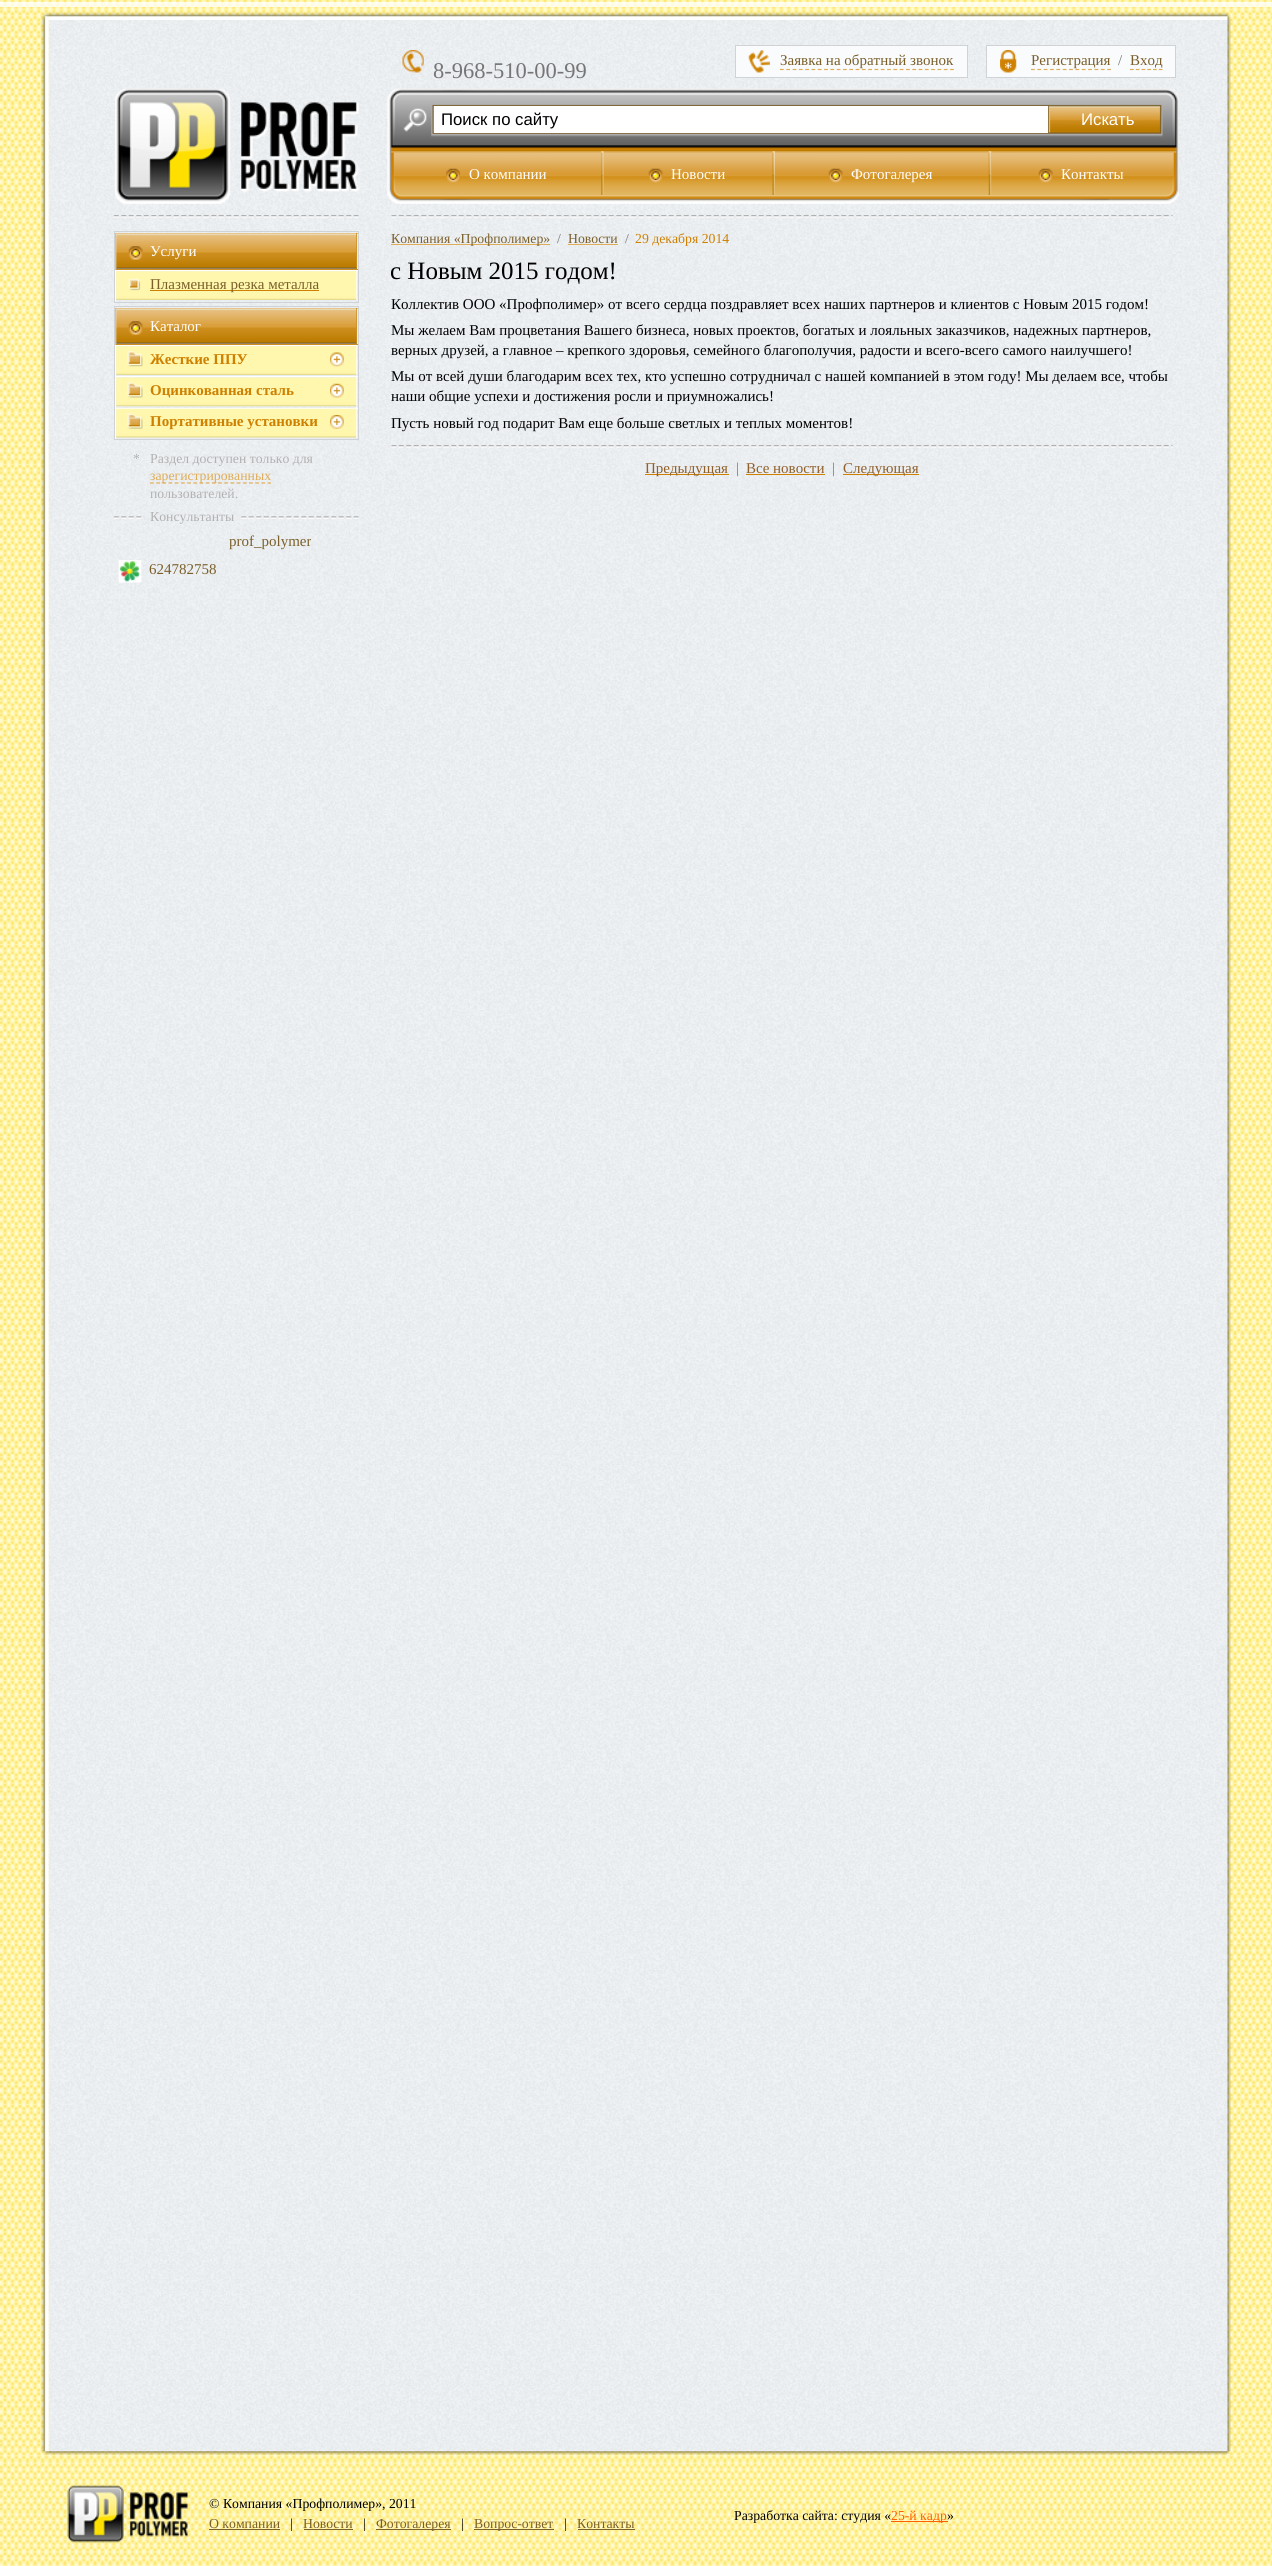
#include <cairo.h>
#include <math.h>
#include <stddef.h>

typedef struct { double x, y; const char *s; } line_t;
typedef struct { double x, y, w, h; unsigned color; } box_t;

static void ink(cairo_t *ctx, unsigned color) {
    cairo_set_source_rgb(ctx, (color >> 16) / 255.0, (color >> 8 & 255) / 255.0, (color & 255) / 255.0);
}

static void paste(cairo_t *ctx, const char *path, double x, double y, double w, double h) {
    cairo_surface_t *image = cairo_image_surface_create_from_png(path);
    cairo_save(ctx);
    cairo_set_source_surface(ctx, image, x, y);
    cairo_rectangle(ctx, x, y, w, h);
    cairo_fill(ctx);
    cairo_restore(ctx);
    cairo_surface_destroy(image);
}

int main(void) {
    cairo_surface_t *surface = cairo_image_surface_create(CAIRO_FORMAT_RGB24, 1272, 2566);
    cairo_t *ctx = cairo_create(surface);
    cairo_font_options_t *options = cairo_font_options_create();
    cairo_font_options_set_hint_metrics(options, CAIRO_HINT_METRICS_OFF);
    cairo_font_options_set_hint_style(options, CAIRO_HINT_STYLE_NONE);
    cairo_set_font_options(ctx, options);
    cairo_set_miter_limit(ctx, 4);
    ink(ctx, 0xFFFFFF);
    cairo_paint(ctx);
    paste(ctx, "media/1.png", 0, 0, 1272, 2566);
    cairo_set_source_rgba(ctx, 1, 1, 1, 0.75);
    cairo_rectangle(ctx, 0, 2, 1272, 5);
    cairo_fill(ctx);
    paste(ctx, "media/3.png", 48, 12, 1180, 8);
    paste(ctx, "media/2.png", 41, 12, 8, 8);
    paste(ctx, "media/4.png", 1227, 13, 4, 7);
    paste(ctx, "media/5.png", 41, 20, 8, 2432);
    paste(ctx, "media/6.png", 48, 20, 1180, 2432);
    paste(ctx, "media/7.png", 115, 88, 244, 116);
    paste(ctx, "media/8.png", 113, 215, 246, 3);
    cairo_rectangle(ctx, 114.5, 231.5, 244, 71);
    ink(ctx, 0xD0D3D5);
    cairo_set_line_width(ctx, 1);
    cairo_stroke(ctx);
    {
        static const box_t items[] = {
            {115, 233, 243, 1, 0xE6BE7D},
            {356, 233, 1, 37, 0xCE8F1E},
            {115, 269, 243, 1, 0xCE8F1E},
            {115, 233, 1, 37, 0xE6BE7D},
        };
        for (size_t i = 0; i < sizeof items / sizeof *items; i++) {
            ink(ctx, items[i].color);
            cairo_rectangle(ctx, items[i].x, items[i].y, items[i].w, items[i].h);
            cairo_fill(ctx);
        }
    }
    paste(ctx, "media/9.png", 116, 233, 241, 36);
    paste(ctx, "media/10.png", 128, 246, 15, 14);
    cairo_select_font_face(ctx, "Liberation Serif", CAIRO_FONT_SLANT_NORMAL, CAIRO_FONT_WEIGHT_NORMAL);
    cairo_set_font_size(ctx, 15);
    ink(ctx, 0xFFFFFF);
    cairo_move_to(ctx, 150, 256);
    cairo_show_text(ctx, "Услуги");
    {
        static const box_t items[] = {
            {115, 270, 243, 1, 0xFFFFFF},
            {356, 270, 1, 31, 0xFFFFFF},
            {115, 300, 243, 1, 0xEAEDF0},
            {115, 270, 1, 31, 0xFFFFFF},
        };
        for (size_t i = 0; i < sizeof items / sizeof *items; i++) {
            ink(ctx, items[i].color);
            cairo_rectangle(ctx, items[i].x, items[i].y, items[i].w, items[i].h);
            cairo_fill(ctx);
        }
    }
    paste(ctx, "media/11.png", 116, 271, 241, 29);
    paste(ctx, "media/12.png", 128, 278, 13, 13);
    ink(ctx, 0xCE8000);
    cairo_rectangle(ctx, 150, 290, 169, 1);
    cairo_fill(ctx);
    ink(ctx, 0x7A5F2A);
    cairo_move_to(ctx, 150, 289);
    cairo_show_text(ctx, "Плазменная резка металла");
    cairo_rectangle(ctx, 114.5, 306.5, 244, 133);
    ink(ctx, 0xD0D3D5);
    cairo_stroke(ctx);
    {
        static const box_t items[] = {
            {115, 308, 243, 1, 0xE6BE7D},
            {356, 308, 1, 37, 0xCE8F1E},
            {115, 344, 243, 1, 0xCE8F1E},
            {115, 308, 1, 37, 0xE6BE7D},
        };
        for (size_t i = 0; i < sizeof items / sizeof *items; i++) {
            ink(ctx, items[i].color);
            cairo_rectangle(ctx, items[i].x, items[i].y, items[i].w, items[i].h);
            cairo_fill(ctx);
        }
    }
    paste(ctx, "media/13.png", 116, 308, 241, 36);
    paste(ctx, "media/10.png", 128, 321, 15, 14);
    ink(ctx, 0xFFFFFF);
    cairo_move_to(ctx, 150, 331);
    cairo_show_text(ctx, "Каталог");
    {
        static const box_t items[] = {
            {115, 345, 243, 1, 0xFFFFFF},
            {356, 345, 1, 31, 0xFFFFFF},
            {115, 375, 243, 1, 0xEAEDF0},
            {115, 345, 1, 31, 0xFFFFFF},
        };
        for (size_t i = 0; i < sizeof items / sizeof *items; i++) {
            ink(ctx, items[i].color);
            cairo_rectangle(ctx, items[i].x, items[i].y, items[i].w, items[i].h);
            cairo_fill(ctx);
        }
    }
    paste(ctx, "media/14.png", 116, 346, 241, 29);
    paste(ctx, "media/15.png", 127, 351, 16, 16);
    cairo_select_font_face(ctx, "Liberation Serif", CAIRO_FONT_SLANT_NORMAL, CAIRO_FONT_WEIGHT_BOLD);
    ink(ctx, 0xCE8000);
    cairo_move_to(ctx, 150, 364);
    cairo_show_text(ctx, "Жесткие ППУ");
    paste(ctx, "media/16.png", 330, 352, 14, 15);
    {
        static const box_t items[] = {
            {115, 376, 243, 1, 0xFFFFFF},
            {356, 376, 1, 32, 0xFFFFFF},
            {115, 406, 243, 1, 0xEAEDF0},
            {115, 376, 1, 32, 0xFFFFFF},
        };
        for (size_t i = 0; i < sizeof items / sizeof *items; i++) {
            ink(ctx, items[i].color);
            cairo_rectangle(ctx, items[i].x, items[i].y, items[i].w, items[i].h);
            cairo_fill(ctx);
        }
    }
    paste(ctx, "media/17.png", 116, 377, 241, 30);
    paste(ctx, "media/18.png", 127, 382, 16, 16);
    ink(ctx, 0xCE8000);
    cairo_move_to(ctx, 150, 395);
    cairo_show_text(ctx, "Оцинкованная сталь");
    paste(ctx, "media/19.png", 330, 383, 14, 15);
    {
        static const box_t items[] = {
            {115, 408, 243, 1, 0xFFFFFF},
            {356, 408, 1, 31, 0xFFFFFF},
            {115, 438, 243, 1, 0xEAEDF0},
            {115, 408, 1, 31, 0xFFFFFF},
        };
        for (size_t i = 0; i < sizeof items / sizeof *items; i++) {
            ink(ctx, items[i].color);
            cairo_rectangle(ctx, items[i].x, items[i].y, items[i].w, items[i].h);
            cairo_fill(ctx);
        }
    }
    paste(ctx, "media/20.png", 116, 408, 241, 30);
    paste(ctx, "media/21.png", 127, 413, 16, 16);
    ink(ctx, 0xCE8000);
    cairo_move_to(ctx, 150, 426);
    cairo_show_text(ctx, "Портативные установки");
    paste(ctx, "media/22.png", 330, 415, 14, 14);
    cairo_select_font_face(ctx, "Liberation Serif", CAIRO_FONT_SLANT_NORMAL, CAIRO_FONT_WEIGHT_NORMAL);
    cairo_set_font_size(ctx, 13.75);
    ink(ctx, 0xB1B1B1);
    cairo_move_to(ctx, 133, 463);
    cairo_show_text(ctx, "*");
    cairo_move_to(ctx, 150, 463);
    cairo_show_text(ctx, "Раздел доступен только для");
    cairo_new_path(ctx);
    cairo_move_to(ctx, 150, 483);
    cairo_line_to(ctx, 271, 483);
    ink(ctx, 0xDFAC56);
    cairo_set_line_width(ctx, 1.2);
    cairo_set_dash(ctx, (double[]){3.75, 2.44}, 2, 0);
    cairo_stroke(ctx);
    cairo_move_to(ctx, 150, 480);
    cairo_show_text(ctx, "зарегистрированных");
    ink(ctx, 0xB1B1B1);
    cairo_move_to(ctx, 150, 498);
    cairo_show_text(ctx, "пользователей.");
    paste(ctx, "media/23.png", 114, 516, 245, 3);
    paste(ctx, "media/24.png", 144, 509, 96, 15);
    cairo_move_to(ctx, 150, 521);
    cairo_show_text(ctx, "Консультанты");
    cairo_set_font_size(ctx, 15);
    ink(ctx, 0x7A5F2A);
    cairo_move_to(ctx, 229, 546);
    cairo_show_text(ctx, "prof_polymer");
    paste(ctx, "media/25.png", 118, 560, 24, 23);
    cairo_move_to(ctx, 149, 574);
    cairo_show_text(ctx, "624782758");
    paste(ctx, "media/26.png", 402, 50, 22, 23);
    cairo_set_font_size(ctx, 22.5);
    ink(ctx, 0x767676);
    cairo_move_to(ctx, 433, 78);
    cairo_show_text(ctx, "8-968-510-00-99");
    ink(ctx, 0xFAFBFD);
    cairo_rectangle(ctx, 736, 46, 231, 31);
    cairo_fill(ctx);
    paste(ctx, "media/27.png", 748, 50, 22, 23);
    cairo_rectangle(ctx, 735.5, 45.5, 232, 32);
    ink(ctx, 0xD0D3D5);
    cairo_set_line_width(ctx, 1);
    cairo_set_dash(ctx, NULL, 0, 0);
    cairo_stroke(ctx);
    cairo_new_path(ctx);
    cairo_move_to(ctx, 780, 69.5);
    cairo_line_to(ctx, 954, 69.5);
    ink(ctx, 0xDFAC56);
    cairo_set_line_width(ctx, 1.2);
    cairo_set_dash(ctx, (double[]){3.75, 2.55}, 2, 0);
    cairo_stroke(ctx);
    cairo_set_font_size(ctx, 15);
    ink(ctx, 0x7A5F2A);
    cairo_move_to(ctx, 780, 65);
    cairo_show_text(ctx, "Заявка на обратный звонок");
    ink(ctx, 0xFAFBFD);
    cairo_rectangle(ctx, 987, 46, 188, 31);
    cairo_fill(ctx);
    paste(ctx, "media/28.png", 1000, 50, 17, 23);
    cairo_rectangle(ctx, 986.5, 45.5, 189, 32);
    ink(ctx, 0xD0D3D5);
    cairo_set_line_width(ctx, 1);
    cairo_set_dash(ctx, NULL, 0, 0);
    cairo_stroke(ctx);
    cairo_new_path(ctx);
    cairo_move_to(ctx, 1031, 69.5);
    cairo_line_to(ctx, 1111, 69.5);
    ink(ctx, 0xDFAC56);
    cairo_set_line_width(ctx, 1.2);
    cairo_set_dash(ctx, (double[]){3.75, 2.6}, 2, 0);
    cairo_stroke(ctx);
    ink(ctx, 0x7A5F2A);
    cairo_move_to(ctx, 1031, 65);
    cairo_show_text(ctx, "Регистрация");
    ink(ctx, 0x767676);
    cairo_move_to(ctx, 1118, 65);
    cairo_show_text(ctx, "/");
    ink(ctx, 0x7A5F2A);
    cairo_move_to(ctx, 1130, 65);
    cairo_show_text(ctx, "Вход");
    cairo_new_path(ctx);
    cairo_move_to(ctx, 1130, 69.5);
    cairo_line_to(ctx, 1162.5, 69.5);
    ink(ctx, 0xDFAC56);
    cairo_set_dash(ctx, (double[]){3.75, 2}, 2, 0);
    cairo_stroke(ctx);
    paste(ctx, "media/29.png", 387, 88, 792, 116);
    ink(ctx, 0xFFFFFF);
    cairo_rectangle(ctx, 434, 106, 614, 27);
    cairo_fill(ctx);
    cairo_select_font_face(ctx, "Liberation Sans", CAIRO_FONT_SLANT_NORMAL, CAIRO_FONT_WEIGHT_NORMAL);
    cairo_set_font_size(ctx, 16.75);
    ink(ctx, 0x000000);
    cairo_move_to(ctx, 441, 125);
    cairo_show_text(ctx, "Поиск по сайту");
    ink(ctx, 0xFFFFFF);
    cairo_move_to(ctx, 1081, 125);
    cairo_show_text(ctx, "Искать");
    paste(ctx, "media/30.png", 393, 152, 209, 25);
    paste(ctx, "media/31.png", 446, 168, 14, 15);
    cairo_select_font_face(ctx, "Liberation Serif", CAIRO_FONT_SLANT_NORMAL, CAIRO_FONT_WEIGHT_NORMAL);
    cairo_set_font_size(ctx, 15);
    cairo_move_to(ctx, 469, 179);
    cairo_show_text(ctx, "О компании");
    paste(ctx, "media/32.png", 601, 151, 3, 44);
    paste(ctx, "media/33.png", 603, 152, 170, 25);
    paste(ctx, "media/34.png", 648, 168, 15, 15);
    cairo_move_to(ctx, 671, 179);
    cairo_show_text(ctx, "Новости");
    paste(ctx, "media/35.png", 772, 151, 3, 44);
    paste(ctx, "media/36.png", 775, 152, 214, 25);
    paste(ctx, "media/37.png", 828, 168, 15, 15);
    cairo_move_to(ctx, 851, 179);
    cairo_show_text(ctx, "Фотогалерея");
    paste(ctx, "media/38.png", 988, 151, 4, 44);
    paste(ctx, "media/39.png", 991, 152, 183, 25);
    paste(ctx, "media/34.png", 1038, 168, 15, 15);
    cairo_move_to(ctx, 1061, 179);
    cairo_show_text(ctx, "Контакты");
    paste(ctx, "media/40.png", 391, 215, 782, 3);
    ink(ctx, 0xDFAC56);
    cairo_rectangle(ctx, 391, 244, 159, 1);
    cairo_fill(ctx);
    cairo_set_font_size(ctx, 13.75);
    ink(ctx, 0x7A5F2A);
    cairo_move_to(ctx, 391, 243);
    cairo_show_text(ctx, "Компания «Профполимер»");
    ink(ctx, 0x767676);
    cairo_move_to(ctx, 557, 243);
    cairo_show_text(ctx, "/");
    ink(ctx, 0x7A5F2A);
    cairo_move_to(ctx, 568, 243);
    cairo_show_text(ctx, "Новости");
    ink(ctx, 0xDFAC56);
    cairo_rectangle(ctx, 568, 244, 50, 1);
    cairo_fill(ctx);
    ink(ctx, 0x767676);
    cairo_move_to(ctx, 625, 243);
    cairo_show_text(ctx, "/");
    ink(ctx, 0xCE8000);
    cairo_move_to(ctx, 635, 243);
    cairo_show_text(ctx, "29 декабря 2014");
    cairo_set_font_size(ctx, 25);
    ink(ctx, 0x000000);
    cairo_move_to(ctx, 390, 279);
    cairo_show_text(ctx, "с Новым 2015 годом!");
    cairo_set_font_size(ctx, 15);
    {
        static const line_t items[] = {
            {391, 309, "Коллектив ООО «Профполимер» от всего сердца поздравляет всех наших партнеров и клиентов с Новым 2015 годом!"},
            {391, 335, "Мы желаем Вам процветания Вашего бизнеса, новых проектов, богатых и лояльных заказчиков, надежных партнеров,"},
            {391, 355, "верных друзей, а главное – крепкого здоровья, семейного благополучия, радости и всего-всего самого наилучшего!"},
            {391, 381, "Мы от всей души благодарим всех тех, кто успешно сотрудничал с нашей компанией в этом году! Мы делаем все, чтобы"},
            {391, 401, "наши общие успехи и достижения росли и приумножались!"},
            {391, 428, "Пусть новый год подарит Вам еще больше светлых и теплых моментов!"},
        };
        for (size_t i = 0; i < sizeof items / sizeof *items; i++) {
            cairo_move_to(ctx, items[i].x, items[i].y);
            cairo_show_text(ctx, items[i].s);
        }
    }
    paste(ctx, "media/41.png", 391, 445, 782, 3);
    ink(ctx, 0xCE8000);
    cairo_rectangle(ctx, 645, 474, 84, 1);
    cairo_fill(ctx);
    ink(ctx, 0x8F5F29);
    cairo_move_to(ctx, 645, 473);
    cairo_show_text(ctx, "Предыдущая");
    ink(ctx, 0x767676);
    cairo_move_to(ctx, 736, 473);
    cairo_show_text(ctx, "|");
    ink(ctx, 0x8F5F29);
    cairo_move_to(ctx, 746, 473);
    cairo_show_text(ctx, "Все новости");
    ink(ctx, 0xCE8000);
    cairo_rectangle(ctx, 746, 474, 79, 1);
    cairo_fill(ctx);
    ink(ctx, 0x767676);
    cairo_move_to(ctx, 832, 473);
    cairo_show_text(ctx, "|");
    ink(ctx, 0xCE8000);
    cairo_rectangle(ctx, 843, 474, 76, 1);
    cairo_fill(ctx);
    ink(ctx, 0x8F5F29);
    cairo_move_to(ctx, 843, 473);
    cairo_show_text(ctx, "Следующая");
    paste(ctx, "media/42.png", 1227, 20, 4, 2432);
    paste(ctx, "media/44.png", 48, 2451, 1180, 4);
    paste(ctx, "media/43.png", 42, 2451, 7, 4);
    paste(ctx, "media/45.png", 1227, 2451, 3, 3);
    paste(ctx, "media/46.png", 67, 2485, 121, 58);
    cairo_set_font_size(ctx, 13.75);
    ink(ctx, 0x000000);
    cairo_move_to(ctx, 209, 2508);
    cairo_show_text(ctx, "© Компания «Профполимер», 2011");
    ink(ctx, 0x7A5F2A);
    cairo_move_to(ctx, 209, 2528);
    cairo_show_text(ctx, "О компании");
    cairo_rectangle(ctx, 209, 2529, 71, 1);
    cairo_fill(ctx);
    ink(ctx, 0x000000);
    cairo_move_to(ctx, 290, 2528);
    cairo_show_text(ctx, "|");
    ink(ctx, 0x7A5F2A);
    cairo_move_to(ctx, 303, 2528);
    cairo_show_text(ctx, "Новости");
    cairo_rectangle(ctx, 304, 2529, 49, 1);
    cairo_fill(ctx);
    ink(ctx, 0x000000);
    cairo_move_to(ctx, 363, 2528);
    cairo_show_text(ctx, "|");
    ink(ctx, 0x7A5F2A);
    cairo_rectangle(ctx, 376, 2529, 75, 1);
    cairo_fill(ctx);
    cairo_move_to(ctx, 376, 2528);
    cairo_show_text(ctx, "Фотогалерея");
    ink(ctx, 0x000000);
    cairo_move_to(ctx, 461, 2528);
    cairo_show_text(ctx, "|");
    ink(ctx, 0x7A5F2A);
    cairo_rectangle(ctx, 474, 2529, 80, 1);
    cairo_fill(ctx);
    cairo_move_to(ctx, 474, 2528);
    cairo_show_text(ctx, "Вопрос-ответ");
    ink(ctx, 0x000000);
    cairo_move_to(ctx, 564, 2528);
    cairo_show_text(ctx, "|");
    ink(ctx, 0x7A5F2A);
    cairo_move_to(ctx, 577, 2528);
    cairo_show_text(ctx, "Контакты");
    cairo_rectangle(ctx, 578, 2529, 57, 1);
    cairo_fill(ctx);
    ink(ctx, 0x000000);
    cairo_move_to(ctx, 734, 2520);
    cairo_show_text(ctx, "Разработка сайта: студия «");
    ink(ctx, 0xFF6000);
    cairo_rectangle(ctx, 891, 2521, 57, 1);
    cairo_fill(ctx);
    cairo_move_to(ctx, 891, 2520);
    cairo_show_text(ctx, "25-й кадр");
    ink(ctx, 0x000000);
    cairo_move_to(ctx, 947, 2520);
    cairo_show_text(ctx, "»");
    cairo_surface_write_to_png(surface, "image.png");
    cairo_font_options_destroy(options);
    cairo_destroy(ctx);
    cairo_surface_destroy(surface);
    return 0;
}
